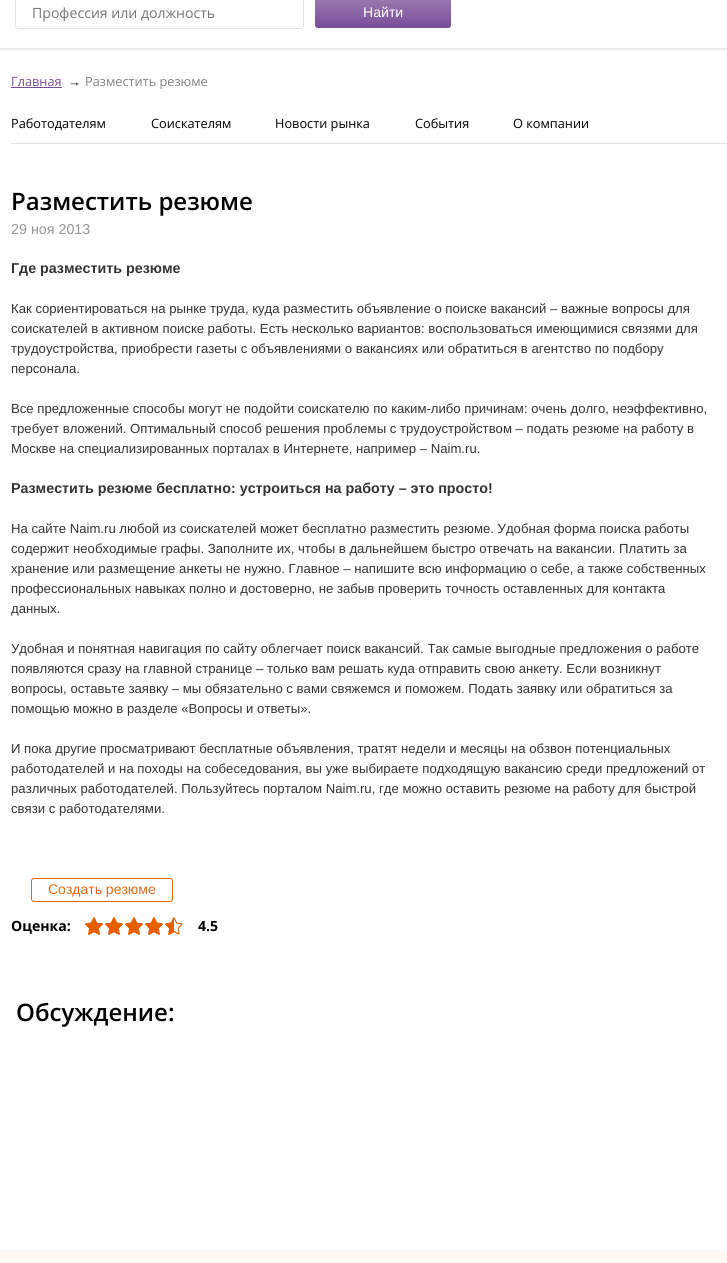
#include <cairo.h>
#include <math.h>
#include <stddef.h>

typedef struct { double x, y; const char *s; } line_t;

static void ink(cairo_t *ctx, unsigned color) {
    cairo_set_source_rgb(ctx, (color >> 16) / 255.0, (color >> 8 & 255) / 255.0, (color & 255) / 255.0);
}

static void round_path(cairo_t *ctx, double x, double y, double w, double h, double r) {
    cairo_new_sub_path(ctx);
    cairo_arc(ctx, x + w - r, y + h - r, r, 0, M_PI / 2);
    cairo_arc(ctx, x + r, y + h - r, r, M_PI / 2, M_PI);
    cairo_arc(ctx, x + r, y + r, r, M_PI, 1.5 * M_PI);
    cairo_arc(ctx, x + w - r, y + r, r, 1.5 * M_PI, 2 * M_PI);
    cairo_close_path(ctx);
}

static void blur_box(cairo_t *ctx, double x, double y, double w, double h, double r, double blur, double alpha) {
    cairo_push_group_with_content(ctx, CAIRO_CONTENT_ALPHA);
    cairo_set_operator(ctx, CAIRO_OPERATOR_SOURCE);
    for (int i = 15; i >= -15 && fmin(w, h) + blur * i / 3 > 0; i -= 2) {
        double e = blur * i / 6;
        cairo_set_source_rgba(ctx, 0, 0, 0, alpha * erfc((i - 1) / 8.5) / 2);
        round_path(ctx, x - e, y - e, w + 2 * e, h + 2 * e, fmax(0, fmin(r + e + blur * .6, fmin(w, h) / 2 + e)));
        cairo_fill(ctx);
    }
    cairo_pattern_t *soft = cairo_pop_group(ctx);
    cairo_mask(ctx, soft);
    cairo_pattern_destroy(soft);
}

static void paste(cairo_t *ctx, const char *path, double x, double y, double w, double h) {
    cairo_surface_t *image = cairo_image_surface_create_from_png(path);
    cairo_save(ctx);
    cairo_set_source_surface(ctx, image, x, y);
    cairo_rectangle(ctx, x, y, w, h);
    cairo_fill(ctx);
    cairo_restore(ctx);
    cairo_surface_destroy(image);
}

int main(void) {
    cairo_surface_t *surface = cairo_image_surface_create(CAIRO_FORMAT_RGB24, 727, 1263);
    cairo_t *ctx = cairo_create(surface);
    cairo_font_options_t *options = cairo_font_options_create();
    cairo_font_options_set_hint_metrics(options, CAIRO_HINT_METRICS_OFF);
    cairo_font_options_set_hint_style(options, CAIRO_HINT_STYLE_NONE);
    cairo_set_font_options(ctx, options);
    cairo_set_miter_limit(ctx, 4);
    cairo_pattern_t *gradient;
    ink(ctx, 0xFFFFFF);
    cairo_paint(ctx);
    cairo_save(ctx);
    cairo_rectangle(ctx, 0, 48, 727, 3);
    cairo_clip(ctx);
    ink(ctx, 0x000000);
    blur_box(ctx, 0, -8, 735, 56, 0, 2.5, 0.2);
    cairo_restore(ctx);
    round_path(ctx, 15.5, -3.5, 288, 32, 2.5);
    ink(ctx, 0xE6DFDA);
    cairo_set_line_width(ctx, 1);
    cairo_stroke(ctx);
    cairo_select_font_face(ctx, "Open Sans", CAIRO_FONT_SLANT_NORMAL, CAIRO_FONT_WEIGHT_NORMAL);
    cairo_set_font_size(ctx, 14.1);
    ink(ctx, 0x757575);
    cairo_move_to(ctx, 32, 18);
    cairo_show_text(ctx, "Профессия или должность");
    gradient = cairo_pattern_create_linear(383, -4, 383, 28);
    cairo_pattern_add_color_stop_rgba(gradient, 0, 0.612, 0.49, 0.702, 1);
    cairo_pattern_add_color_stop_rgba(gradient, 1, 0.475, 0.302, 0.6, 1);
    cairo_set_source(ctx, gradient);
    cairo_pattern_destroy(gradient);
    round_path(ctx, 315, -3, 136, 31, 3);
    cairo_fill(ctx);
    cairo_select_font_face(ctx, "Liberation Sans", CAIRO_FONT_SLANT_NORMAL, CAIRO_FONT_WEIGHT_NORMAL);
    ink(ctx, 0xFFFFFF);
    cairo_move_to(ctx, 363, 17);
    cairo_show_text(ctx, "Найти");
    cairo_select_font_face(ctx, "Open Sans", CAIRO_FONT_SLANT_NORMAL, CAIRO_FONT_WEIGHT_NORMAL);
    cairo_set_font_size(ctx, 12.75);
    ink(ctx, 0x794D99);
    cairo_move_to(ctx, 11, 86);
    cairo_show_text(ctx, "Главная");
    cairo_rectangle(ctx, 11, 87, 51, 1);
    cairo_fill(ctx);
    cairo_select_font_face(ctx, "Liberation Sans", CAIRO_FONT_SLANT_NORMAL, CAIRO_FONT_WEIGHT_BOLD);
    ink(ctx, 0x000000);
    cairo_move_to(ctx, 68, 86);
    cairo_show_text(ctx, "→");
    cairo_select_font_face(ctx, "Open Sans", CAIRO_FONT_SLANT_NORMAL, CAIRO_FONT_WEIGHT_NORMAL);
    ink(ctx, 0x808080);
    cairo_move_to(ctx, 85, 86);
    cairo_show_text(ctx, "Разместить резюме");
    ink(ctx, 0xE1E1E1);
    cairo_rectangle(ctx, 11, 143, 716, 1);
    cairo_fill(ctx);
    ink(ctx, 0x000000);
    {
        static const line_t items[] = {
            {11, 128, "Работодателям"},
            {151, 128, "Соискателям"},
            {275, 128, "Новости рынка"},
            {415, 128, "События"},
            {513, 128, "О компании"},
        };
        for (size_t i = 0; i < sizeof items / sizeof *items; i++) {
            cairo_move_to(ctx, items[i].x, items[i].y);
            cairo_show_text(ctx, items[i].s);
        }
    }
    cairo_select_font_face(ctx, "Open Sans SemiBold", CAIRO_FONT_SLANT_NORMAL, CAIRO_FONT_WEIGHT_NORMAL);
    cairo_set_font_size(ctx, 24);
    cairo_move_to(ctx, 11, 210);
    cairo_show_text(ctx, "Разместить резюме");
    cairo_select_font_face(ctx, "Liberation Sans", CAIRO_FONT_SLANT_NORMAL, CAIRO_FONT_WEIGHT_NORMAL);
    cairo_set_font_size(ctx, 14.3);
    ink(ctx, 0x959595);
    cairo_move_to(ctx, 11, 234);
    cairo_show_text(ctx, "29 ноя 2013");
    cairo_select_font_face(ctx, "Liberation Sans", CAIRO_FONT_SLANT_NORMAL, CAIRO_FONT_WEIGHT_BOLD);
    ink(ctx, 0x333333);
    cairo_move_to(ctx, 11, 273);
    cairo_show_text(ctx, "Где разместить резюме");
    cairo_select_font_face(ctx, "Liberation Sans", CAIRO_FONT_SLANT_NORMAL, CAIRO_FONT_WEIGHT_NORMAL);
    cairo_set_font_size(ctx, 13.15);
    {
        static const line_t items[] = {
            {11, 313, "Как сориентироваться на рынке труда, куда разместить объявление о поиске вакансий – важные вопросы для"},
            {11, 333, "соискателей в активном поиске работы. Есть несколько вариантов: воспользоваться имеющимися связями для"},
            {11, 353, "трудоустройства, приобрести газеты с объявлениями о вакансиях или обратиться в агентство по подбору"},
            {11, 373, "персонала."},
            {11, 413, "Все предложенные способы могут не подойти соискателю по каким-либо причинам: очень долго, неэффективно,"},
            {11, 433, "требует вложений. Оптимальный способ решения проблемы с трудоустройством – подать резюме на работу в"},
            {11, 453, "Москве на специализированных порталах в Интернете, например – Naim.ru."},
        };
        for (size_t i = 0; i < sizeof items / sizeof *items; i++) {
            cairo_move_to(ctx, items[i].x, items[i].y);
            cairo_show_text(ctx, items[i].s);
        }
    }
    cairo_select_font_face(ctx, "Liberation Sans", CAIRO_FONT_SLANT_NORMAL, CAIRO_FONT_WEIGHT_BOLD);
    cairo_set_font_size(ctx, 14.3);
    cairo_move_to(ctx, 11, 493);
    cairo_show_text(ctx, "Разместить резюме бесплатно: устроиться на работу – это просто!");
    cairo_select_font_face(ctx, "Liberation Sans", CAIRO_FONT_SLANT_NORMAL, CAIRO_FONT_WEIGHT_NORMAL);
    cairo_set_font_size(ctx, 13.15);
    {
        static const line_t items[] = {
            {11, 533, "На сайте Naim.ru любой из соискателей может бесплатно разместить резюме. Удобная форма поиска работы"},
            {11, 553, "содержит необходимые графы. Заполните их, чтобы в дальнейшем быстро отвечать на вакансии. Платить за"},
            {11, 573, "хранение или размещение анкеты не нужно. Главное – напишите всю информацию о себе, а также собственных"},
            {11, 593, "профессиональных навыках полно и достоверно, не забыв проверить точность оставленных для контакта"},
            {11, 613, "данных."},
            {11, 653, "Удобная и понятная навигация по сайту облегчает поиск вакансий. Так самые выгодные предложения о работе"},
            {11, 673, "появляются сразу на главной странице – только вам решать куда отправить свою анкету. Если возникнут"},
            {11, 693, "вопросы, оставьте заявку – мы обязательно с вами свяжемся и поможем. Подать заявку или обратиться за"},
            {11, 713, "помощью можно в разделе «Вопросы и ответы»."},
            {11, 753, "И пока другие просматривают бесплатные объявления, тратят недели и месяцы на обзвон потенциальных"},
            {11, 773, "работодателей и на походы на собеседования, вы уже выбираете подходящую вакансию среди предложений от"},
            {11, 793, "различных работодателей. Пользуйтесь порталом Naim.ru, где можно оставить резюме на работу для быстрой"},
            {11, 813, "связи с работодателями."},
        };
        for (size_t i = 0; i < sizeof items / sizeof *items; i++) {
            cairo_move_to(ctx, items[i].x, items[i].y);
            cairo_show_text(ctx, items[i].s);
        }
    }
    round_path(ctx, 31.5, 878.5, 141, 23, 2.5);
    ink(ctx, 0xE66910);
    cairo_stroke(ctx);
    cairo_set_font_size(ctx, 14);
    cairo_move_to(ctx, 48, 894);
    cairo_show_text(ctx, "Создать резюме");
    cairo_select_font_face(ctx, "Open Sans", CAIRO_FONT_SLANT_NORMAL, CAIRO_FONT_WEIGHT_BOLD);
    cairo_set_font_size(ctx, 14.1);
    ink(ctx, 0x000000);
    cairo_move_to(ctx, 11, 931);
    cairo_show_text(ctx, "Оценка:");
    paste(ctx, "media/1.png", 85, 917, 98, 18);
    paste(ctx, "media/2.png", 85, 917, 89, 18);
    cairo_move_to(ctx, 198, 931);
    cairo_show_text(ctx, "4.5");
    cairo_select_font_face(ctx, "Open Sans SemiBold", CAIRO_FONT_SLANT_NORMAL, CAIRO_FONT_WEIGHT_NORMAL);
    cairo_set_font_size(ctx, 24);
    cairo_move_to(ctx, 16, 1021);
    cairo_show_text(ctx, "Обсуждение:");
    ink(ctx, 0xFFF8F2);
    cairo_rectangle(ctx, 0, 1250, 727, 13);
    cairo_fill(ctx);
    cairo_surface_write_to_png(surface, "image.png");
    cairo_font_options_destroy(options);
    cairo_destroy(ctx);
    cairo_surface_destroy(surface);
    return 0;
}
